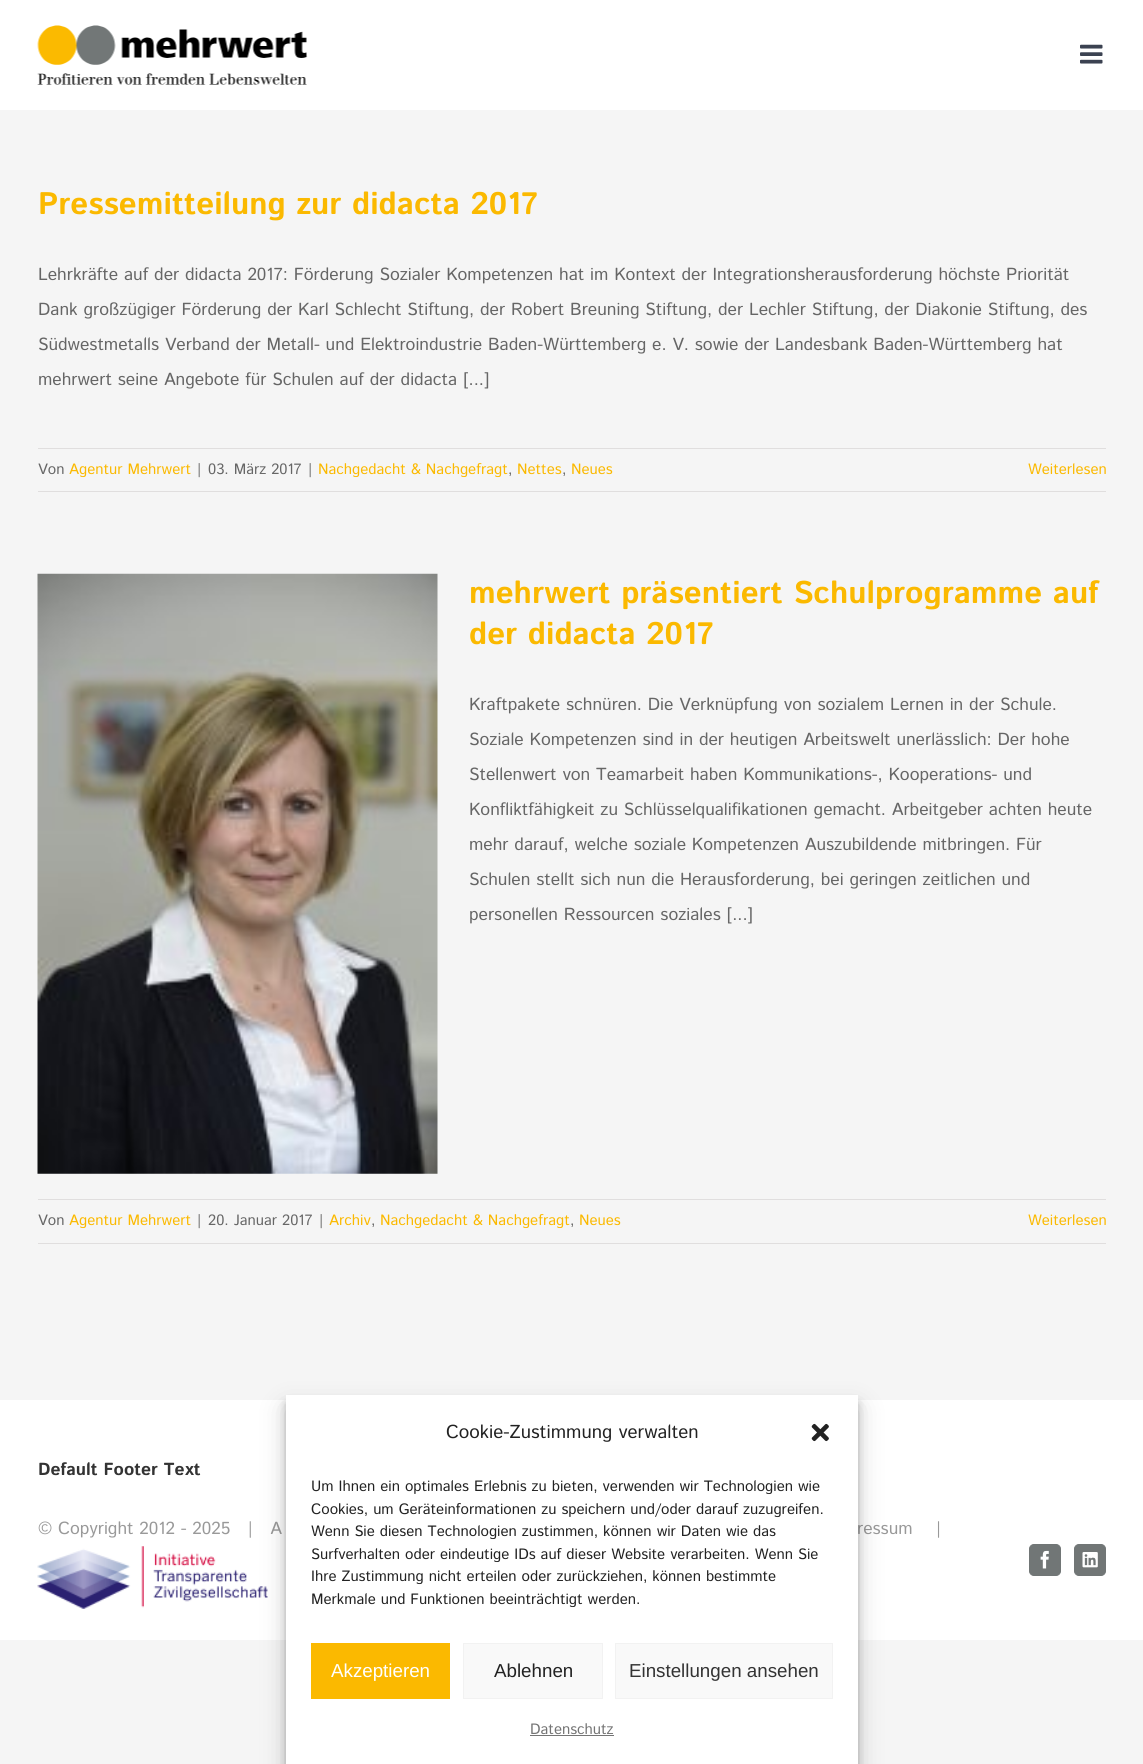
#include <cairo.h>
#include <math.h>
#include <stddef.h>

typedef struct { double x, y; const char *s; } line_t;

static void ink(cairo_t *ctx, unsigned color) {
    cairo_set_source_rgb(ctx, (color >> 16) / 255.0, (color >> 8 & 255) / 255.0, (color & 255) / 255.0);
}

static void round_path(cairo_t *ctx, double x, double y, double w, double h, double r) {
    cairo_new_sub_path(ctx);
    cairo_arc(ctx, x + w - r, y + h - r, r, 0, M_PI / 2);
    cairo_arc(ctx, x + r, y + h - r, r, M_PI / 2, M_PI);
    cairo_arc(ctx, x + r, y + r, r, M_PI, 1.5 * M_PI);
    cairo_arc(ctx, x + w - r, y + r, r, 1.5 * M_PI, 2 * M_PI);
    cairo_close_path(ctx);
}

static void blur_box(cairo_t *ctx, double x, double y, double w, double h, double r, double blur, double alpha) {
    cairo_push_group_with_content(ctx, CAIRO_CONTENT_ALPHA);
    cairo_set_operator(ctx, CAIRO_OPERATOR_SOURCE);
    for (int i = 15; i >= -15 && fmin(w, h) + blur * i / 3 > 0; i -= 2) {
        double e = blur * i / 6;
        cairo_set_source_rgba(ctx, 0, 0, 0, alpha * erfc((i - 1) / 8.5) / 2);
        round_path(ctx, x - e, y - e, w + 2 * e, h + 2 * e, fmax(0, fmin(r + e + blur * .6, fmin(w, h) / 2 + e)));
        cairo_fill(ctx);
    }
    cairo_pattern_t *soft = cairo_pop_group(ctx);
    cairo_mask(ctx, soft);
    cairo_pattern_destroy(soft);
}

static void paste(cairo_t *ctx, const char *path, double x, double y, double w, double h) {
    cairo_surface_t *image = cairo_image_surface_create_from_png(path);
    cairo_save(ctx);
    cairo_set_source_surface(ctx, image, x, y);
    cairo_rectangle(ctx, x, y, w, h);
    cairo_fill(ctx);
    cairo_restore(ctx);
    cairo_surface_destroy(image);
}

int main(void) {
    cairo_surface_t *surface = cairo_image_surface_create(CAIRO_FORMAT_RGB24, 1143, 1764);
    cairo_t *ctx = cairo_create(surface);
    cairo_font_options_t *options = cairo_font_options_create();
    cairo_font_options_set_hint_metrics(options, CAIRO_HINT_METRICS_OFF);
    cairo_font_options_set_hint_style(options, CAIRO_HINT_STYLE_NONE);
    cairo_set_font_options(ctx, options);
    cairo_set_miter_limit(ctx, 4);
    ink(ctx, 0xF5F5F5);
    cairo_paint(ctx);
    ink(ctx, 0xFFFFFF);
    cairo_rectangle(ctx, 0, 0, 1143, 110);
    cairo_fill(ctx);
    paste(ctx, "media/1.png", 37, 25, 271, 60);
    paste(ctx, "media/2.png", 1080, 44, 23, 20);
    cairo_select_font_face(ctx, "Istok Web", CAIRO_FONT_SLANT_NORMAL, CAIRO_FONT_WEIGHT_BOLD);
    cairo_set_font_size(ctx, 31.25);
    ink(ctx, 0xFBB900);
    cairo_move_to(ctx, 38, 214);
    cairo_show_text(ctx, "Pressemitteilung zur didacta 2017");
    cairo_select_font_face(ctx, "Istok Web", CAIRO_FONT_SLANT_NORMAL, CAIRO_FONT_WEIGHT_NORMAL);
    cairo_set_font_size(ctx, 17.5);
    ink(ctx, 0x666666);
    {
        static const line_t items[] = {
            {38, 280, "Lehrkräfte auf der didacta 2017: Förderung Sozialer Kompetenzen hat im Kontext der Integrationsherausforderung höchste Priorität"},
            {38, 315, "Dank großzügiger Förderung der Karl Schlecht Stiftung, der Robert Breuning Stiftung, der Lechler Stiftung, der Diakonie Stiftung, des"},
            {38, 350, "Südwestmetalls Verband der Metall- und Elektroindustrie Baden-Württemberg e. V. sowie der Landesbank Baden-Württemberg hat"},
            {38, 385, "mehrwert seine Angebote für Schulen auf der didacta [...]"},
        };
        for (size_t i = 0; i < sizeof items / sizeof *items; i++) {
            cairo_move_to(ctx, items[i].x, items[i].y);
            cairo_show_text(ctx, items[i].s);
        }
    }
    ink(ctx, 0xE0DEDE);
    cairo_rectangle(ctx, 38, 448, 1068, 1);
    cairo_fill(ctx);
    cairo_rectangle(ctx, 38, 491, 1068, 1);
    cairo_fill(ctx);
    cairo_set_font_size(ctx, 15);
    ink(ctx, 0x666666);
    cairo_move_to(ctx, 38, 474);
    cairo_show_text(ctx, "Von");
    ink(ctx, 0xFBB900);
    cairo_move_to(ctx, 69, 474);
    cairo_show_text(ctx, "Agentur Mehrwert");
    ink(ctx, 0x666666);
    {
        static const line_t items[] = {
            {197, 474, "|"},
            {208, 474, "03. März 2017"},
            {308, 474, "|"},
        };
        for (size_t i = 0; i < sizeof items / sizeof *items; i++) {
            cairo_move_to(ctx, items[i].x, items[i].y);
            cairo_show_text(ctx, items[i].s);
        }
    }
    ink(ctx, 0xFBB900);
    cairo_move_to(ctx, 318, 474);
    cairo_show_text(ctx, "Nachgedacht & Nachgefragt");
    ink(ctx, 0x666666);
    cairo_move_to(ctx, 508, 474);
    cairo_show_text(ctx, ",");
    ink(ctx, 0xFBB900);
    cairo_move_to(ctx, 517, 474);
    cairo_show_text(ctx, "Nettes");
    ink(ctx, 0x666666);
    cairo_move_to(ctx, 562, 474);
    cairo_show_text(ctx, ",");
    ink(ctx, 0xFBB900);
    cairo_move_to(ctx, 571, 474);
    cairo_show_text(ctx, "Neues");
    cairo_move_to(ctx, 1028, 474);
    cairo_show_text(ctx, "Weiterlesen");
    paste(ctx, "media/3.png", 37, 573, 401, 601);
    cairo_select_font_face(ctx, "Istok Web", CAIRO_FONT_SLANT_NORMAL, CAIRO_FONT_WEIGHT_BOLD);
    cairo_set_font_size(ctx, 31.25);
    cairo_move_to(ctx, 469, 603);
    cairo_show_text(ctx, "mehrwert präsentiert Schulprogramme auf");
    cairo_move_to(ctx, 469, 644);
    cairo_show_text(ctx, "der didacta 2017");
    cairo_select_font_face(ctx, "Istok Web", CAIRO_FONT_SLANT_NORMAL, CAIRO_FONT_WEIGHT_NORMAL);
    cairo_set_font_size(ctx, 17.5);
    ink(ctx, 0x666666);
    {
        static const line_t items[] = {
            {469, 710, "Kraftpakete schnüren. Die Verknüpfung von sozialem Lernen in der Schule."},
            {469, 745, "Soziale Kompetenzen sind in der heutigen Arbeitswelt unerlässlich: Der hohe"},
            {469, 780, "Stellenwert von Teamarbeit haben Kommunikations-, Kooperations- und"},
            {469, 815, "Konfliktfähigkeit zu Schlüsselqualifikationen gemacht. Arbeitgeber achten heute"},
            {469, 850, "mehr darauf, welche soziale Kompetenzen Auszubildende mitbringen. Für"},
            {469, 885, "Schulen stellt sich nun die Herausforderung, bei geringen zeitlichen und"},
            {469, 920, "personellen Ressourcen soziales [...]"},
        };
        for (size_t i = 0; i < sizeof items / sizeof *items; i++) {
            cairo_move_to(ctx, items[i].x, items[i].y);
            cairo_show_text(ctx, items[i].s);
        }
    }
    ink(ctx, 0xE0DEDE);
    cairo_rectangle(ctx, 38, 1199, 1068, 1);
    cairo_fill(ctx);
    cairo_rectangle(ctx, 38, 1243, 1068, 1);
    cairo_fill(ctx);
    cairo_set_font_size(ctx, 15);
    ink(ctx, 0x666666);
    cairo_move_to(ctx, 38, 1225);
    cairo_show_text(ctx, "Von");
    ink(ctx, 0xFBB900);
    cairo_move_to(ctx, 69, 1225);
    cairo_show_text(ctx, "Agentur Mehrwert");
    ink(ctx, 0x666666);
    {
        static const line_t items[] = {
            {197, 1225, "|"},
            {208, 1225, "20. Januar 2017"},
            {319, 1225, "|"},
        };
        for (size_t i = 0; i < sizeof items / sizeof *items; i++) {
            cairo_move_to(ctx, items[i].x, items[i].y);
            cairo_show_text(ctx, items[i].s);
        }
    }
    ink(ctx, 0xFBB900);
    cairo_move_to(ctx, 329, 1225);
    cairo_show_text(ctx, "Archiv");
    ink(ctx, 0x666666);
    cairo_move_to(ctx, 371, 1225);
    cairo_show_text(ctx, ",");
    ink(ctx, 0xFBB900);
    cairo_move_to(ctx, 380, 1225);
    cairo_show_text(ctx, "Nachgedacht & Nachgefragt");
    ink(ctx, 0x666666);
    cairo_move_to(ctx, 570, 1225);
    cairo_show_text(ctx, ",");
    ink(ctx, 0xFBB900);
    cairo_move_to(ctx, 579, 1225);
    cairo_show_text(ctx, "Neues");
    cairo_move_to(ctx, 1028, 1225);
    cairo_show_text(ctx, "Weiterlesen");
    ink(ctx, 0xFFFFFF);
    cairo_rectangle(ctx, 0, 1400, 1143, 240);
    cairo_fill(ctx);
    cairo_select_font_face(ctx, "Istok Web", CAIRO_FONT_SLANT_NORMAL, CAIRO_FONT_WEIGHT_BOLD);
    cairo_set_font_size(ctx, 17.5);
    ink(ctx, 0x333333);
    cairo_move_to(ctx, 38, 1475);
    cairo_show_text(ctx, "Default Footer Text");
    cairo_select_font_face(ctx, "Istok Web", CAIRO_FONT_SLANT_NORMAL, CAIRO_FONT_WEIGHT_NORMAL);
    ink(ctx, 0x999999);
    {
        static const line_t items[] = {
            {38, 1534, "© Copyright 2012 - 2025   |   A"},
            {857, 1534, "ressum"},
            {936, 1534, "|"},
        };
        for (size_t i = 0; i < sizeof items / sizeof *items; i++) {
            cairo_move_to(ctx, items[i].x, items[i].y);
            cairo_show_text(ctx, items[i].s);
        }
    }
    paste(ctx, "media/4.png", 37, 1546, 231, 63);
    ink(ctx, 0x717676);
    round_path(ctx, 1029.5, 1544.5, 31, 31, 4.5);
    cairo_fill_preserve(ctx);
    cairo_set_line_width(ctx, 1);
    cairo_stroke(ctx);
    paste(ctx, "media/5.png", 1040, 1550, 9, 19);
    round_path(ctx, 1074.5, 1544.5, 31, 31, 4.5);
    cairo_fill_preserve(ctx);
    cairo_stroke(ctx);
    paste(ctx, "media/6.png", 1082, 1552, 16, 16);
    ink(ctx, 0x000000);
    blur_box(ctx, 286, 1403, 572, 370, 0, 4, 0.23);
    blur_box(ctx, 286, 1408, 572, 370, 0, 12.5, 0.19);
    ink(ctx, 0xFFFFFF);
    cairo_rectangle(ctx, 286, 1395, 572, 369);
    cairo_fill(ctx);
    cairo_set_font_size(ctx, 18.75);
    ink(ctx, 0x222222);
    cairo_move_to(ctx, 446, 1438);
    cairo_show_text(ctx, "Cookie-Zustimmung verwalten");
    paste(ctx, "media/7.png", 811, 1423, 18, 19);
    cairo_set_font_size(ctx, 15);
    {
        static const line_t items[] = {
            {311, 1491, "Um Ihnen ein optimales Erlebnis zu bieten, verwenden wir Technologien wie"},
            {311, 1514, "Cookies, um Geräteinformationen zu speichern und/oder darauf zuzugreifen."},
            {311, 1536, "Wenn Sie diesen Technologien zustimmen, können wir Daten wie das"},
            {311, 1559, "Surfverhalten oder eindeutige IDs auf dieser Website verarbeiten. Wenn Sie"},
            {311, 1581, "Ihre Zustimmung nicht erteilen oder zurückziehen, können bestimmte"},
            {311, 1604, "Merkmale und Funktionen beeinträchtigt werden."},
        };
        for (size_t i = 0; i < sizeof items / sizeof *items; i++) {
            cairo_move_to(ctx, items[i].x, items[i].y);
            cairo_show_text(ctx, items[i].s);
        }
    }
    ink(ctx, 0xFBB900);
    cairo_rectangle(ctx, 311, 1643, 139, 56);
    cairo_fill(ctx);
    cairo_select_font_face(ctx, "Liberation Sans", CAIRO_FONT_SLANT_NORMAL, CAIRO_FONT_WEIGHT_NORMAL);
    cairo_set_font_size(ctx, 18.75);
    ink(ctx, 0xFFFFFF);
    cairo_move_to(ctx, 331, 1677);
    cairo_show_text(ctx, "Akzeptieren");
    ink(ctx, 0xF9F9F9);
    cairo_rectangle(ctx, 463.5, 1643.5, 139, 55);
    cairo_fill_preserve(ctx);
    ink(ctx, 0xF2F2F2);
    cairo_stroke(ctx);
    ink(ctx, 0x222222);
    cairo_move_to(ctx, 494, 1677);
    cairo_show_text(ctx, "Ablehnen");
    ink(ctx, 0xF9F9F9);
    cairo_rectangle(ctx, 615.5, 1643.5, 217, 55);
    cairo_fill_preserve(ctx);
    ink(ctx, 0xF2F2F2);
    cairo_stroke(ctx);
    ink(ctx, 0x333333);
    cairo_move_to(ctx, 629, 1677);
    cairo_show_text(ctx, "Einstellungen ansehen");
    cairo_select_font_face(ctx, "Istok Web", CAIRO_FONT_SLANT_NORMAL, CAIRO_FONT_WEIGHT_NORMAL);
    cairo_set_font_size(ctx, 15);
    ink(ctx, 0x747474);
    cairo_move_to(ctx, 530, 1734);
    cairo_show_text(ctx, "Datenschutz");
    cairo_rectangle(ctx, 530, 1735, 84, 1);
    cairo_fill(ctx);
    cairo_surface_write_to_png(surface, "image.png");
    cairo_font_options_destroy(options);
    cairo_destroy(ctx);
    cairo_surface_destroy(surface);
    return 0;
}
